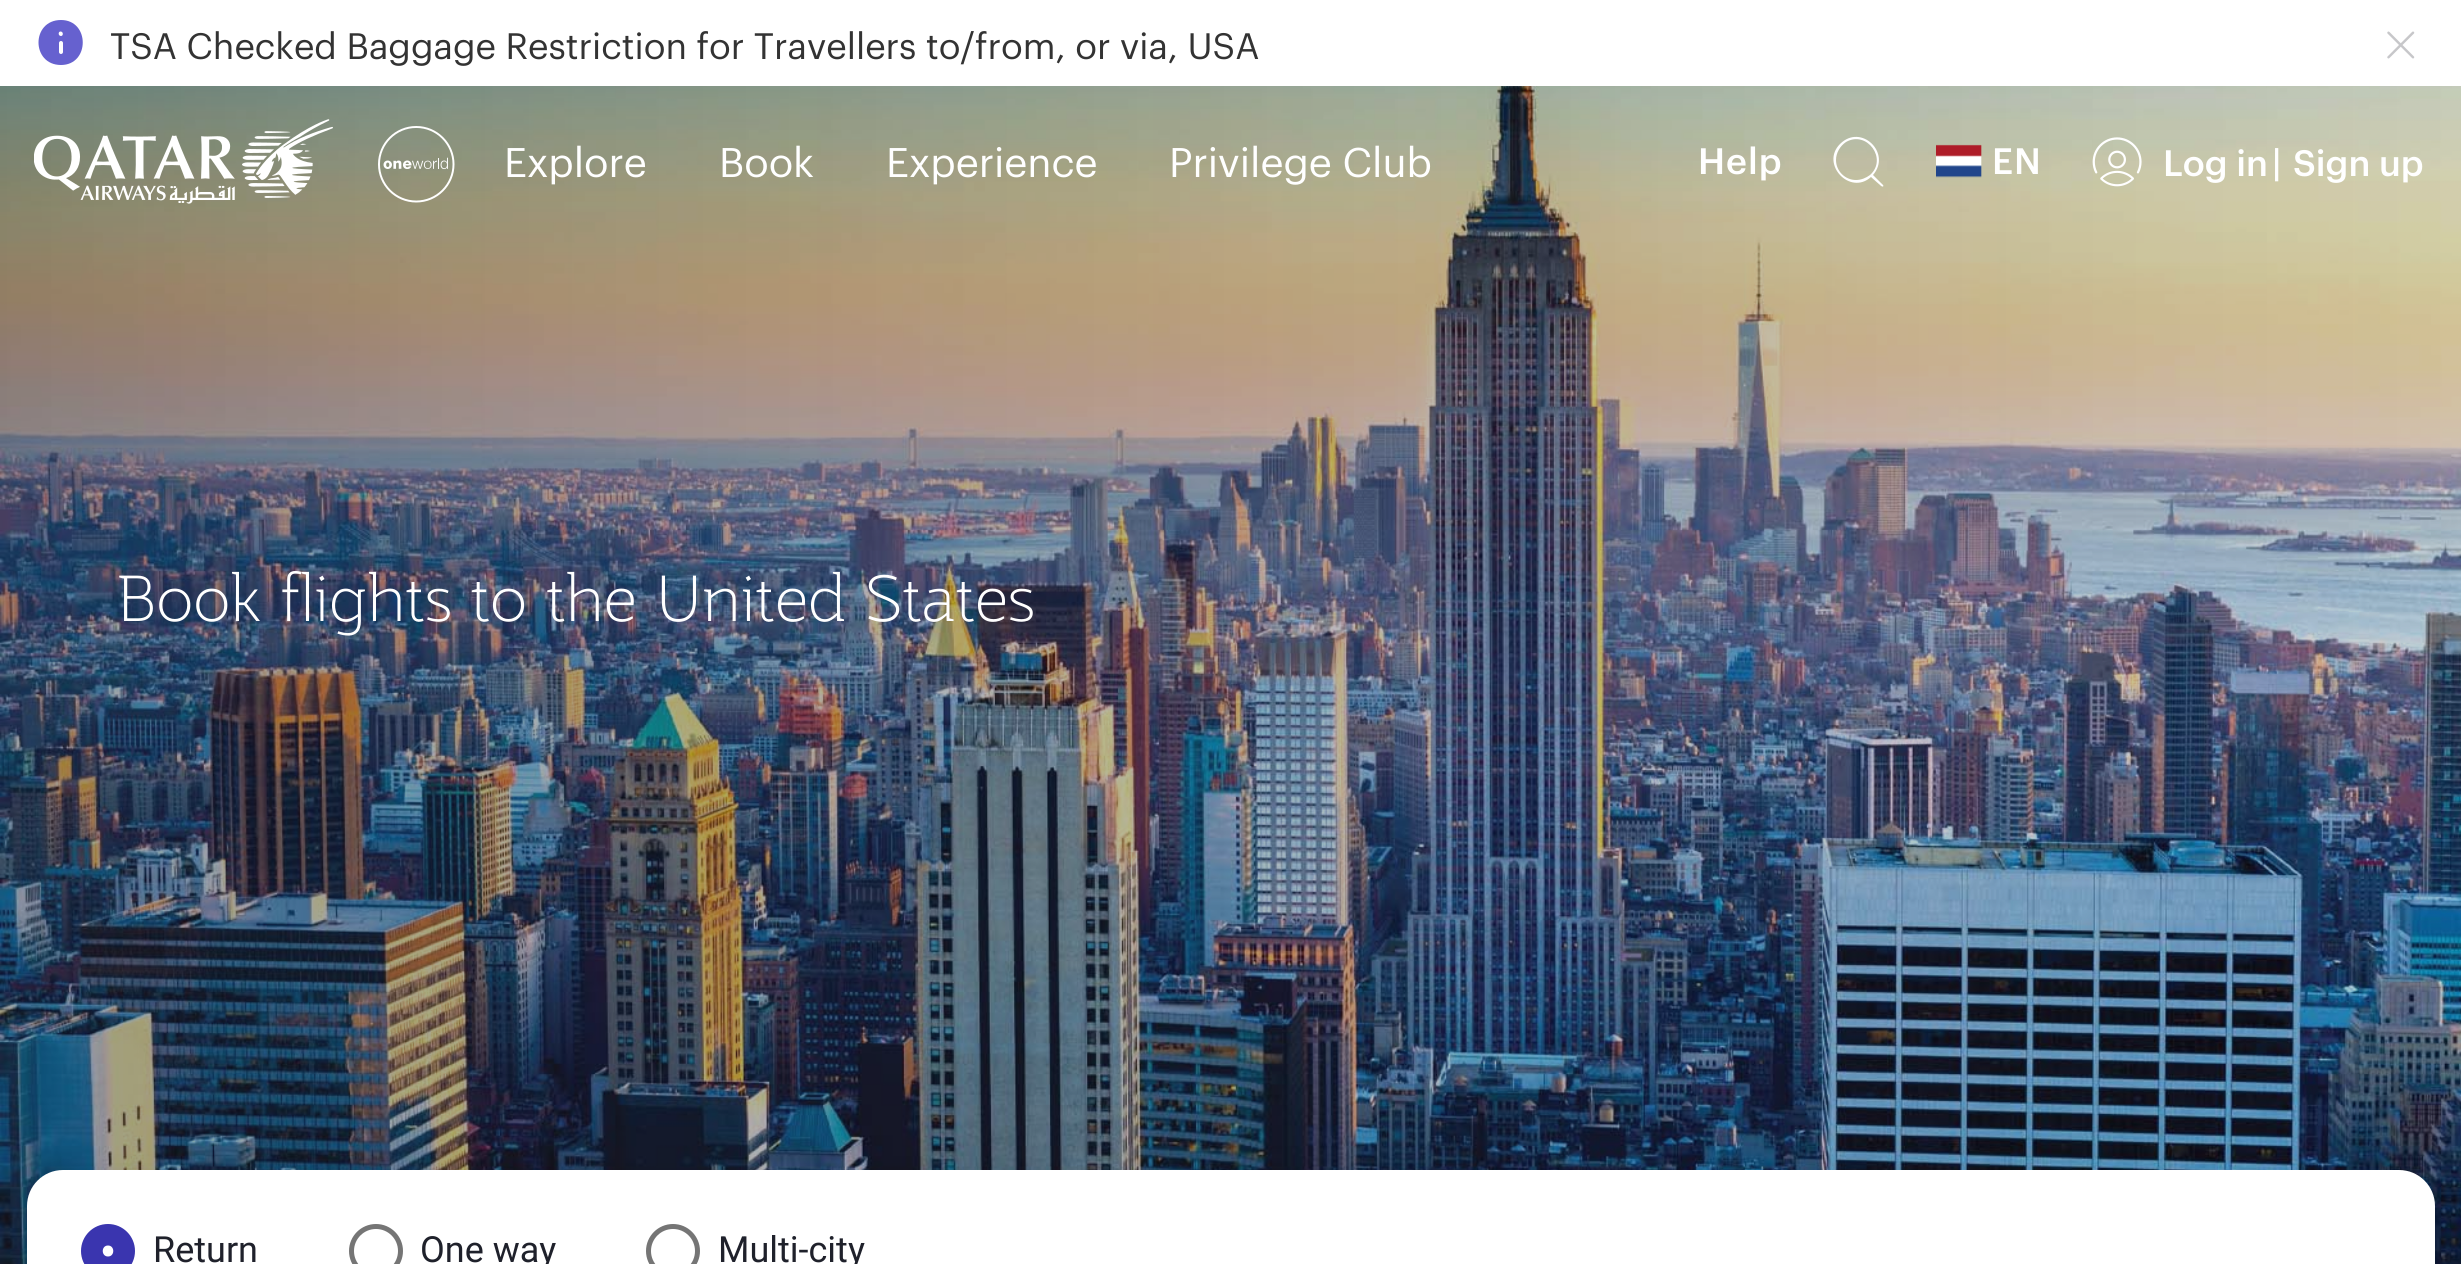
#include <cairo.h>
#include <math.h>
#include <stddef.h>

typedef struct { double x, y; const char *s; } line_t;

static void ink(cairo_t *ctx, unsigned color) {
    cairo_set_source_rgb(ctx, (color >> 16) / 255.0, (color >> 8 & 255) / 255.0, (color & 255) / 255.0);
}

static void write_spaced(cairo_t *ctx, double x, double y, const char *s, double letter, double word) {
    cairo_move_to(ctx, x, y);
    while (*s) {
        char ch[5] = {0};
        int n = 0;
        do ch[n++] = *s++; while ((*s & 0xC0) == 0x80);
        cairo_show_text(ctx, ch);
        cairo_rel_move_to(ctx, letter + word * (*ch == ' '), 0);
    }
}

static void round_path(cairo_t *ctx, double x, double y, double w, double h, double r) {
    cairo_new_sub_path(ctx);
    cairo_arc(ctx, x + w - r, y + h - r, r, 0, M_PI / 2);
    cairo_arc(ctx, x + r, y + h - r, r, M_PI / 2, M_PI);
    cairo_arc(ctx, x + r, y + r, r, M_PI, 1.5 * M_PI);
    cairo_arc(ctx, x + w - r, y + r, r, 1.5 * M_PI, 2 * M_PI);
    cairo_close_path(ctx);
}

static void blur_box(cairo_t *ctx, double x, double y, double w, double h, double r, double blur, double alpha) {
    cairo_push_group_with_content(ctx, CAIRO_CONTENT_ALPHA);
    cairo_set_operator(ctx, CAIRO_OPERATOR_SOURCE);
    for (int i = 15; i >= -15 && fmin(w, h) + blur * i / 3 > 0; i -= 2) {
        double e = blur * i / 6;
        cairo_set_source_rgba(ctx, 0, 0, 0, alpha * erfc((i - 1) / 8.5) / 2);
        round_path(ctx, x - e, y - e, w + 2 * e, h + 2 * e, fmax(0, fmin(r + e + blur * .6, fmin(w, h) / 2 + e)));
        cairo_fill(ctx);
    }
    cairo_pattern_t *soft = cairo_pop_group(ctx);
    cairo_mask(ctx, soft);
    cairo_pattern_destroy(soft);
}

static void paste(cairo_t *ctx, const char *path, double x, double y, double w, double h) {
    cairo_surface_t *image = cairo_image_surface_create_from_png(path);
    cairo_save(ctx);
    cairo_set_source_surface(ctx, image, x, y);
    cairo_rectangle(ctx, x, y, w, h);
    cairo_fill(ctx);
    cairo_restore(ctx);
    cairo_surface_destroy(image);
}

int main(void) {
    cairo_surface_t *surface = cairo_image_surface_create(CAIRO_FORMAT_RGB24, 2461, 1264);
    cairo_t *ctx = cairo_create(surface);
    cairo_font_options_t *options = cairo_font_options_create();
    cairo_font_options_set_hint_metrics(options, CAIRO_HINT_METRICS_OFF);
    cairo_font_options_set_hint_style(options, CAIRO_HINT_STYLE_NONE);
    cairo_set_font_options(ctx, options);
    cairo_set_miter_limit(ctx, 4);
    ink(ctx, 0xFFFFFF);
    cairo_paint(ctx);
    ink(ctx, 0x6661CF);
    cairo_new_path(ctx);
    cairo_move_to(ctx, 61, 65);
    cairo_curve_to(ctx, 31, 65, 31, 20, 61, 20);
    cairo_curve_to(ctx, 90, 20, 90, 65, 61, 65);
    cairo_close_path(ctx);
    cairo_fill(ctx);
    ink(ctx, 0xFFFFFF);
    cairo_new_path(ctx);
    cairo_move_to(ctx, 61, 36);
    cairo_curve_to(ctx, 58, 36, 58, 31.5, 60.5, 31.5);
    cairo_curve_to(ctx, 63.5, 31.5, 63.5, 36, 61, 36);
    cairo_close_path(ctx);
    cairo_fill(ctx);
    round_path(ctx, 59, 41, 4, 13, 2);
    cairo_fill(ctx);
    cairo_select_font_face(ctx, "Graphik", CAIRO_FONT_SLANT_NORMAL, CAIRO_FONT_WEIGHT_NORMAL);
    cairo_set_font_size(ctx, 36);
    ink(ctx, 0x333333);
    cairo_move_to(ctx, 110, 59);
    cairo_show_text(ctx, "TSA Checked Baggage Restriction for Travellers to/from, or via, USA");
    paste(ctx, "media/1.png", 2387, 31, 28, 28);
    paste(ctx, "media/6.png", 0, 86, 2461, 1178);
    paste(ctx, "media/2.png", 34, 119, 299, 85);
    paste(ctx, "media/3.png", 378, 126, 77, 77);
    cairo_set_font_size(ctx, 40.5);
    ink(ctx, 0xFFFFFF);
    {
        static const line_t items[] = {
            {504, 177, "Explore"},
            {719, 177, "Book"},
            {886, 177, "Experience"},
            {1169, 177, "Privilege Club"},
        };
        for (size_t i = 0; i < sizeof items / sizeof *items; i++) {
            cairo_move_to(ctx, items[i].x, items[i].y);
            cairo_show_text(ctx, items[i].s);
        }
    }
    cairo_select_font_face(ctx, "Graphik Medium", CAIRO_FONT_SLANT_NORMAL, CAIRO_FONT_WEIGHT_NORMAL);
    cairo_set_font_size(ctx, 36);
    write_spaced(ctx, 1698, 174, "Help", 1, 0);
    cairo_new_path(ctx);
    cairo_move_to(ctx, 1883, 185);
    cairo_line_to(ctx, 1873, 175);
    cairo_curve_to(ctx, 1892, 153, 1861, 123, 1840, 144);
    cairo_curve_to(ctx, 1820, 164, 1850, 196, 1871, 177);
    cairo_line_to(ctx, 1880, 185);
    cairo_curve_to(ctx, 1883, 188, 1884, 186, 1883, 185);
    cairo_close_path(ctx);
    cairo_move_to(ctx, 1836, 160);
    cairo_curve_to(ctx, 1836, 153, 1840, 146, 1846, 142);
    cairo_curve_to(ctx, 1867, 130, 1888, 159, 1870, 175);
    cairo_curve_to(ctx, 1866, 178, 1861, 180, 1856, 180);
    cairo_curve_to(ctx, 1845, 180, 1836, 171, 1836, 160);
    cairo_close_path(ctx);
    cairo_fill(ctx);
    paste(ctx, "media/4.png", 1936, 144, 46, 34);
    write_spaced(ctx, 1992, 174, "EN", 1, 0);
    paste(ctx, "media/5.png", 2092, 137, 50, 50);
    {
        static const line_t items[] = {
            {2163, 176, "Log in"},
            {2272, 176, "|"},
            {2293, 176, "Sign up"},
        };
        for (size_t i = 0; i < sizeof items / sizeof *items; i++) {
            cairo_move_to(ctx, items[i].x, items[i].y);
            cairo_show_text(ctx, items[i].s);
        }
    }
    cairo_select_font_face(ctx, "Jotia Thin", CAIRO_FONT_SLANT_NORMAL, CAIRO_FONT_WEIGHT_NORMAL);
    cairo_set_font_size(ctx, 63);
    cairo_move_to(ctx, 117, 621);
    cairo_show_text(ctx, "Book flights to the United States");
    ink(ctx, 0x000000);
    blur_box(ctx, 27, 1179, 2408, 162, 36, 13.5, 0.1);
    ink(ctx, 0xFFFFFF);
    round_path(ctx, 27, 1170, 2408, 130, 36);
    cairo_fill(ctx);
    ink(ctx, 0x3A35AF);
    cairo_arc(ctx, 108, 1251, 24.5, 0, 2 * M_PI);
    cairo_fill_preserve(ctx);
    cairo_set_line_width(ctx, 5);
    cairo_stroke(ctx);
    ink(ctx, 0xFFFFFF);
    cairo_new_path(ctx);
    cairo_move_to(ctx, 108, 1256.5);
    cairo_curve_to(ctx, 101, 1256.5, 101, 1245.5, 108, 1245.5);
    cairo_curve_to(ctx, 115, 1245.5, 115, 1256.5, 108, 1256.5);
    cairo_close_path(ctx);
    cairo_fill(ctx);
    cairo_select_font_face(ctx, "Roboto", CAIRO_FONT_SLANT_NORMAL, CAIRO_FONT_WEIGHT_NORMAL);
    cairo_set_font_size(ctx, 36);
    ink(ctx, 0x1F212B);
    cairo_move_to(ctx, 153, 1262);
    cairo_show_text(ctx, "Return");
    cairo_new_path(ctx);
    cairo_arc(ctx, 376, 1251, 24.5, 0, 2 * M_PI);
    ink(ctx, 0x757575);
    cairo_stroke(ctx);
    ink(ctx, 0x1F212B);
    cairo_move_to(ctx, 420, 1262);
    cairo_show_text(ctx, "One way");
    cairo_new_path(ctx);
    cairo_arc(ctx, 673, 1251, 24.5, 0, 2 * M_PI);
    ink(ctx, 0x757575);
    cairo_stroke(ctx);
    ink(ctx, 0x1F212B);
    cairo_move_to(ctx, 718, 1262);
    cairo_show_text(ctx, "Multi-city");
    cairo_surface_write_to_png(surface, "image.png");
    cairo_font_options_destroy(options);
    cairo_destroy(ctx);
    cairo_surface_destroy(surface);
    return 0;
}
